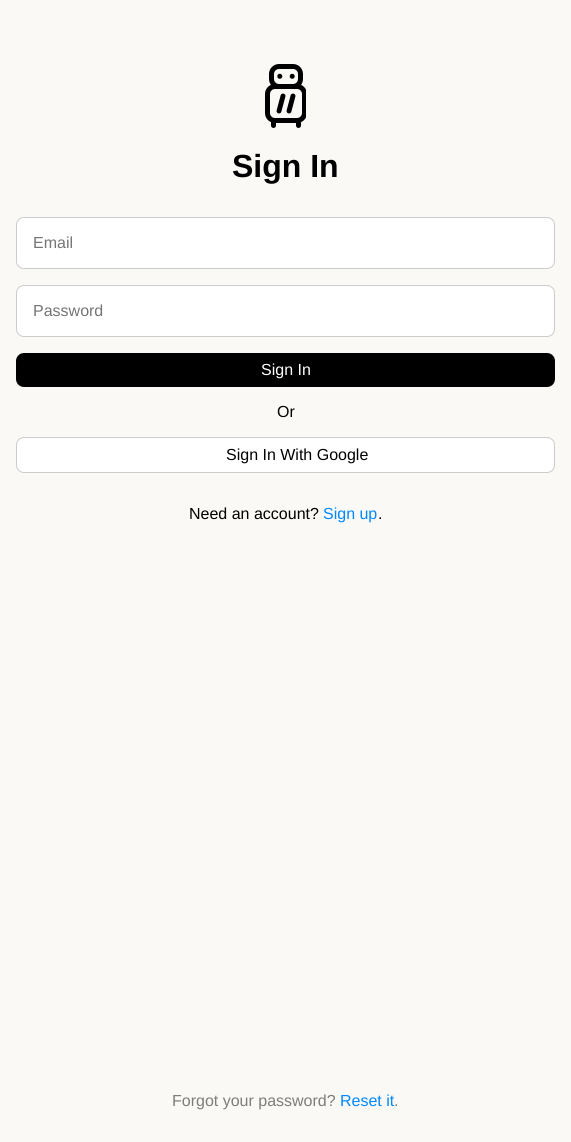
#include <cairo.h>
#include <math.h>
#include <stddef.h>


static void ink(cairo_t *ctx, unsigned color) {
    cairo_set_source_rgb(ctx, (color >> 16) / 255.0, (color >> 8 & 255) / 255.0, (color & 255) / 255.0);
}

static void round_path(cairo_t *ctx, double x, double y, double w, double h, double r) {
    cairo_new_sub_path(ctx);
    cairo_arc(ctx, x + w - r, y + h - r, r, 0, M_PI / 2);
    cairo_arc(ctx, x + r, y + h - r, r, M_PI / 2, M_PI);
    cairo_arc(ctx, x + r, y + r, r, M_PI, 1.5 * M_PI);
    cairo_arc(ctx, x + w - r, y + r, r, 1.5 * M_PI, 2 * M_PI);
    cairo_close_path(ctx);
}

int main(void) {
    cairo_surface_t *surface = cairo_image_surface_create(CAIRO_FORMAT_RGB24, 571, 1142);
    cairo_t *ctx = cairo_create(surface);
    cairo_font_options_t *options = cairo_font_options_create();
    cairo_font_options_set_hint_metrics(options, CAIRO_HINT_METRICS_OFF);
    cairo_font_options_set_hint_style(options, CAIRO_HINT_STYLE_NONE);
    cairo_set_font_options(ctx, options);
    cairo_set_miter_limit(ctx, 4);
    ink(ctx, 0xFAF9F5);
    cairo_paint(ctx);
    round_path(ctx, 271.5, 66.5, 29, 20, 7.5);
    ink(ctx, 0x000000);
    cairo_set_line_width(ctx, 5);
    cairo_stroke(ctx);
    cairo_arc(ctx, 279.8, 76.3, 2.5, 0, 2 * M_PI);
    cairo_fill(ctx);
    cairo_arc(ctx, 292.2, 76.3, 2.5, 0, 2 * M_PI);
    cairo_fill(ctx);
    cairo_save(ctx);
    cairo_rectangle(ctx, 265, 64, 41, 64);
    cairo_clip(ctx);
    round_path(ctx, 267.5, 86.5, 37, 34, 7.5);
    cairo_stroke(ctx);
    cairo_restore(ctx);
    cairo_new_path(ctx);
    cairo_move_to(ctx, 283, 96);
    cairo_line_to(ctx, 279, 111);
    cairo_move_to(ctx, 293, 96);
    cairo_line_to(ctx, 289, 111);
    cairo_set_line_width(ctx, 4.9);
    cairo_set_line_cap(ctx, CAIRO_LINE_CAP_ROUND);
    cairo_set_line_join(ctx, CAIRO_LINE_JOIN_ROUND);
    cairo_stroke(ctx);
    round_path(ctx, 271, 118, 5, 10, 2.5);
    cairo_fill(ctx);
    round_path(ctx, 296, 118, 5, 10, 2.5);
    cairo_fill(ctx);
    cairo_select_font_face(ctx, "Liberation Sans", CAIRO_FONT_SLANT_NORMAL, CAIRO_FONT_WEIGHT_BOLD);
    cairo_set_font_size(ctx, 32);
    cairo_move_to(ctx, 232, 177);
    cairo_show_text(ctx, "Sign In");
    ink(ctx, 0xFFFFFF);
    round_path(ctx, 16, 217, 539, 52, 8);
    cairo_fill(ctx);
    round_path(ctx, 16.5, 217.5, 538, 51, 7.5);
    cairo_set_source_rgba(ctx, 0, 0, 0, 0.2);
    cairo_set_line_width(ctx, 1);
    cairo_set_line_cap(ctx, CAIRO_LINE_CAP_BUTT);
    cairo_set_line_join(ctx, CAIRO_LINE_JOIN_MITER);
    cairo_stroke(ctx);
    cairo_select_font_face(ctx, "Liberation Sans", CAIRO_FONT_SLANT_NORMAL, CAIRO_FONT_WEIGHT_NORMAL);
    cairo_set_font_size(ctx, 16);
    ink(ctx, 0x757575);
    cairo_move_to(ctx, 33, 248);
    cairo_show_text(ctx, "Email");
    ink(ctx, 0xFFFFFF);
    round_path(ctx, 16, 285, 539, 52, 8);
    cairo_fill(ctx);
    round_path(ctx, 16.5, 285.5, 538, 51, 7.5);
    cairo_set_source_rgba(ctx, 0, 0, 0, 0.2);
    cairo_stroke(ctx);
    ink(ctx, 0x757575);
    cairo_move_to(ctx, 33, 316);
    cairo_show_text(ctx, "Password");
    ink(ctx, 0x000000);
    round_path(ctx, 16, 353, 539, 34, 8);
    cairo_fill(ctx);
    ink(ctx, 0xFFFFFF);
    cairo_move_to(ctx, 261, 375);
    cairo_show_text(ctx, "Sign In");
    ink(ctx, 0x000000);
    cairo_move_to(ctx, 277, 417);
    cairo_show_text(ctx, "Or");
    ink(ctx, 0xFFFFFF);
    round_path(ctx, 16, 437, 539, 36, 8);
    cairo_fill(ctx);
    round_path(ctx, 16.5, 437.5, 538, 35, 7.5);
    cairo_set_source_rgba(ctx, 0, 0, 0, 0.2);
    cairo_stroke(ctx);
    ink(ctx, 0x000000);
    cairo_move_to(ctx, 226, 460);
    cairo_show_text(ctx, "Sign In With Google");
    cairo_move_to(ctx, 189, 519);
    cairo_show_text(ctx, "Need an account?");
    ink(ctx, 0x0088FF);
    cairo_move_to(ctx, 323, 519);
    cairo_show_text(ctx, "Sign up");
    ink(ctx, 0x000000);
    cairo_move_to(ctx, 378, 519);
    cairo_show_text(ctx, ".");
    ink(ctx, 0x7D7D7B);
    cairo_move_to(ctx, 172, 1106);
    cairo_show_text(ctx, "Forgot your password?");
    ink(ctx, 0x0088FF);
    cairo_move_to(ctx, 340, 1106);
    cairo_show_text(ctx, "Reset it");
    ink(ctx, 0x7D7D7B);
    cairo_move_to(ctx, 394, 1106);
    cairo_show_text(ctx, ".");
    cairo_surface_write_to_png(surface, "image.png");
    cairo_font_options_destroy(options);
    cairo_destroy(ctx);
    cairo_surface_destroy(surface);
    return 0;
}
